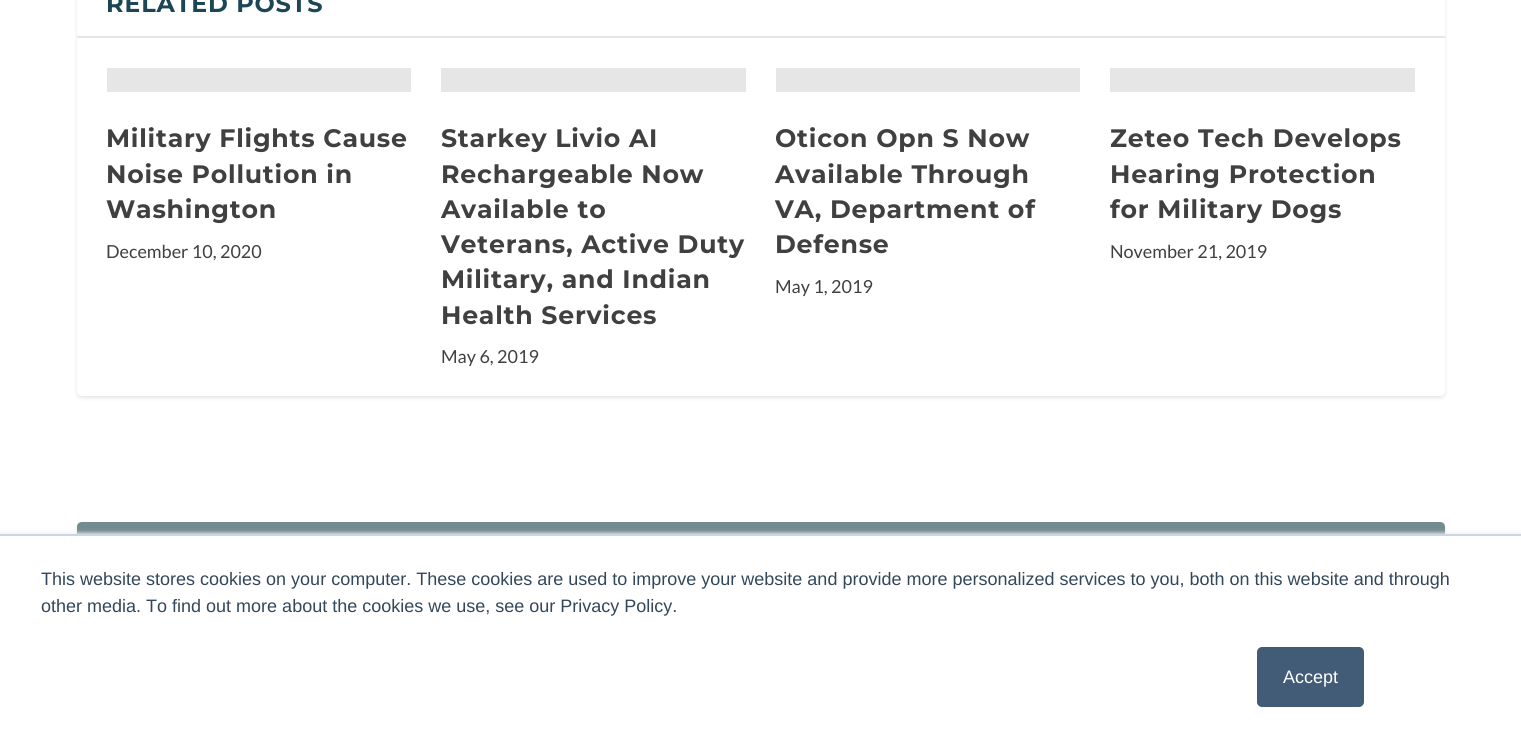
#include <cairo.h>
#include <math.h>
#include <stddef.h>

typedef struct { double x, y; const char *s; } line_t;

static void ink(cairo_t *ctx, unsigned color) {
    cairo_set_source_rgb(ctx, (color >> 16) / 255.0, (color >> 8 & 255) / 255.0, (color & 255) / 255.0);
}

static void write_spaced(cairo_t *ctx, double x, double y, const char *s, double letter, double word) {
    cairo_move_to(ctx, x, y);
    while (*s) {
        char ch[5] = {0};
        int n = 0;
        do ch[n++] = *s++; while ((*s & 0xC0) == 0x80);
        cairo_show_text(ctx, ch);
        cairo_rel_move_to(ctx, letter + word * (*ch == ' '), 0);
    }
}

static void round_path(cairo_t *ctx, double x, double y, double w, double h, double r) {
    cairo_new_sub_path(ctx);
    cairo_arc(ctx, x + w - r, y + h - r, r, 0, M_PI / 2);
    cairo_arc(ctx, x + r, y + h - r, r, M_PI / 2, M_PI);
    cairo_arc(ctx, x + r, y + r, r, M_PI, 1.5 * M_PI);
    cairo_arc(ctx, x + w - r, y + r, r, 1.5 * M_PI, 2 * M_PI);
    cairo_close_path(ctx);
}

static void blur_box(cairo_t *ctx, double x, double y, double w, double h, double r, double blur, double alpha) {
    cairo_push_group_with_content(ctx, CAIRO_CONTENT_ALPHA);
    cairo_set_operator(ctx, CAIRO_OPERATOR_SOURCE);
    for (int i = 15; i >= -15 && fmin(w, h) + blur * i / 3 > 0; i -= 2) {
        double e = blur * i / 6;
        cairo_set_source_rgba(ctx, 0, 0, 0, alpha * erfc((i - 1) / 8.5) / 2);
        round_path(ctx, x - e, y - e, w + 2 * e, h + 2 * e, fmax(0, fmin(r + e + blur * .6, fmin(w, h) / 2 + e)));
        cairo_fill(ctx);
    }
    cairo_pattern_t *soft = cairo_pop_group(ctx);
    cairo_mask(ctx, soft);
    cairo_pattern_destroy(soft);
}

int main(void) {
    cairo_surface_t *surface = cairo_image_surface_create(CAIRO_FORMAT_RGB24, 1521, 745);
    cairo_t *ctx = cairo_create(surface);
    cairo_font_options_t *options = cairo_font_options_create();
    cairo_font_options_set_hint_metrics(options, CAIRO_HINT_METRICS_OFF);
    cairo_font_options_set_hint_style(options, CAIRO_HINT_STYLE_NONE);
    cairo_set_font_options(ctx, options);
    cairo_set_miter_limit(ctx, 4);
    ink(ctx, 0xFFFFFF);
    cairo_paint(ctx);
    ink(ctx, 0x000000);
    blur_box(ctx, 77, -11, 1368, 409, 5, 2, 0.1);
    ink(ctx, 0xFFFFFF);
    round_path(ctx, 77, -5, 1368, 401, 5);
    cairo_fill(ctx);
    ink(ctx, 0xE6E6E6);
    cairo_rectangle(ctx, 77, 36, 1368, 2);
    cairo_fill(ctx);
    cairo_select_font_face(ctx, "Montserrat Thin", CAIRO_FONT_SLANT_NORMAL, CAIRO_FONT_WEIGHT_NORMAL);
    cairo_set_font_size(ctx, 24);
    ink(ctx, 0x1C4655);
    write_spaced(ctx, 106, 12, "RELATED POSTS", 0.75, 0);
    ink(ctx, 0xE6E6E6);
    cairo_rectangle(ctx, 107, 68, 304, 24);
    cairo_fill(ctx);
    cairo_set_font_size(ctx, 25.25);
    ink(ctx, 0x404040);
    {
        static const line_t items[] = {
            {106, 147, "Military Flights Cause"},
            {106, 183, "Noise Pollution in"},
            {106, 218, "Washington"},
        };
        for (size_t i = 0; i < sizeof items / sizeof *items; i++) {
            write_spaced(ctx, items[i].x, items[i].y, items[i].s, 0.75, 0);
        }
    }
    cairo_select_font_face(ctx, "Lato", CAIRO_FONT_SLANT_NORMAL, CAIRO_FONT_WEIGHT_NORMAL);
    cairo_set_font_size(ctx, 18);
    cairo_move_to(ctx, 106, 258);
    cairo_show_text(ctx, "December 10, 2020");
    ink(ctx, 0xE6E6E6);
    cairo_rectangle(ctx, 441, 68, 305, 24);
    cairo_fill(ctx);
    cairo_select_font_face(ctx, "Montserrat Thin", CAIRO_FONT_SLANT_NORMAL, CAIRO_FONT_WEIGHT_NORMAL);
    cairo_set_font_size(ctx, 25.25);
    ink(ctx, 0x404040);
    {
        static const line_t items[] = {
            {441, 147, "Starkey Livio AI"},
            {441, 183, "Rechargeable Now"},
            {441, 218, "Available to"},
            {441, 253, "Veterans, Active Duty"},
            {441, 288, "Military, and Indian"},
            {441, 324, "Health Services"},
        };
        for (size_t i = 0; i < sizeof items / sizeof *items; i++) {
            write_spaced(ctx, items[i].x, items[i].y, items[i].s, 0.75, 0);
        }
    }
    cairo_select_font_face(ctx, "Lato", CAIRO_FONT_SLANT_NORMAL, CAIRO_FONT_WEIGHT_NORMAL);
    cairo_set_font_size(ctx, 18);
    cairo_move_to(ctx, 441, 363);
    cairo_show_text(ctx, "May 6, 2019");
    ink(ctx, 0xE6E6E6);
    cairo_rectangle(ctx, 776, 68, 304, 24);
    cairo_fill(ctx);
    cairo_select_font_face(ctx, "Montserrat Thin", CAIRO_FONT_SLANT_NORMAL, CAIRO_FONT_WEIGHT_NORMAL);
    cairo_set_font_size(ctx, 25.25);
    ink(ctx, 0x404040);
    {
        static const line_t items[] = {
            {775, 147, "Oticon Opn S Now"},
            {775, 183, "Available Through"},
            {775, 218, "VA, Department of"},
            {775, 253, "Defense"},
        };
        for (size_t i = 0; i < sizeof items / sizeof *items; i++) {
            write_spaced(ctx, items[i].x, items[i].y, items[i].s, 0.75, 0);
        }
    }
    cairo_select_font_face(ctx, "Lato", CAIRO_FONT_SLANT_NORMAL, CAIRO_FONT_WEIGHT_NORMAL);
    cairo_set_font_size(ctx, 18);
    cairo_move_to(ctx, 775, 293);
    cairo_show_text(ctx, "May 1, 2019");
    ink(ctx, 0xE6E6E6);
    cairo_rectangle(ctx, 1110, 68, 305, 24);
    cairo_fill(ctx);
    cairo_select_font_face(ctx, "Montserrat Thin", CAIRO_FONT_SLANT_NORMAL, CAIRO_FONT_WEIGHT_NORMAL);
    cairo_set_font_size(ctx, 25.25);
    ink(ctx, 0x404040);
    {
        static const line_t items[] = {
            {1110, 147, "Zeteo Tech Develops"},
            {1110, 183, "Hearing Protection"},
            {1110, 218, "for Military Dogs"},
        };
        for (size_t i = 0; i < sizeof items / sizeof *items; i++) {
            write_spaced(ctx, items[i].x, items[i].y, items[i].s, 0.75, 0);
        }
    }
    cairo_select_font_face(ctx, "Lato", CAIRO_FONT_SLANT_NORMAL, CAIRO_FONT_WEIGHT_NORMAL);
    cairo_set_font_size(ctx, 18);
    cairo_move_to(ctx, 1110, 258);
    cairo_show_text(ctx, "November 21, 2019");
    ink(ctx, 0x000000);
    blur_box(ctx, 77, 524, 1368, 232, 5, 2, 0.1);
    ink(ctx, 0x738A8F);
    cairo_new_path(ctx);
    cairo_move_to(ctx, 82, 522);
    cairo_line_to(ctx, 1440, 522);
    cairo_curve_to(ctx, 1443, 522, 1445, 524, 1445, 527);
    cairo_line_to(ctx, 1445, 591);
    cairo_line_to(ctx, 77, 591);
    cairo_line_to(ctx, 77, 527);
    cairo_curve_to(ctx, 77, 524, 79, 522, 82, 522);
    cairo_close_path(ctx);
    cairo_fill(ctx);
    ink(ctx, 0xEAF0F6);
    blur_box(ctx, 0, 533, 1521, 211, 0, 2, 1);
    ink(ctx, 0xFFFFFF);
    cairo_rectangle(ctx, 0, 536, 1521, 209);
    cairo_fill(ctx);
    ink(ctx, 0xCBD6E2);
    cairo_rectangle(ctx, 0, 534, 1521, 2);
    cairo_fill(ctx);
    cairo_select_font_face(ctx, "Liberation Sans", CAIRO_FONT_SLANT_NORMAL, CAIRO_FONT_WEIGHT_NORMAL);
    ink(ctx, 0x33475B);
    cairo_move_to(ctx, 41, 585);
    cairo_show_text(ctx, "This website stores cookies on your computer. These cookies are used to improve your website and provide more personalized services to you, both on this website and through");
    cairo_move_to(ctx, 41, 612);
    cairo_show_text(ctx, "other media. To find out more about the cookies we use, see our Privacy Policy.");
    ink(ctx, 0x425B76);
    round_path(ctx, 1258, 648, 105, 58, 4);
    cairo_fill_preserve(ctx);
    cairo_stroke(ctx);
    ink(ctx, 0xFFFFFF);
    cairo_move_to(ctx, 1283, 683);
    cairo_show_text(ctx, "Accept");
    cairo_surface_write_to_png(surface, "image.png");
    cairo_font_options_destroy(options);
    cairo_destroy(ctx);
    cairo_surface_destroy(surface);
    return 0;
}
